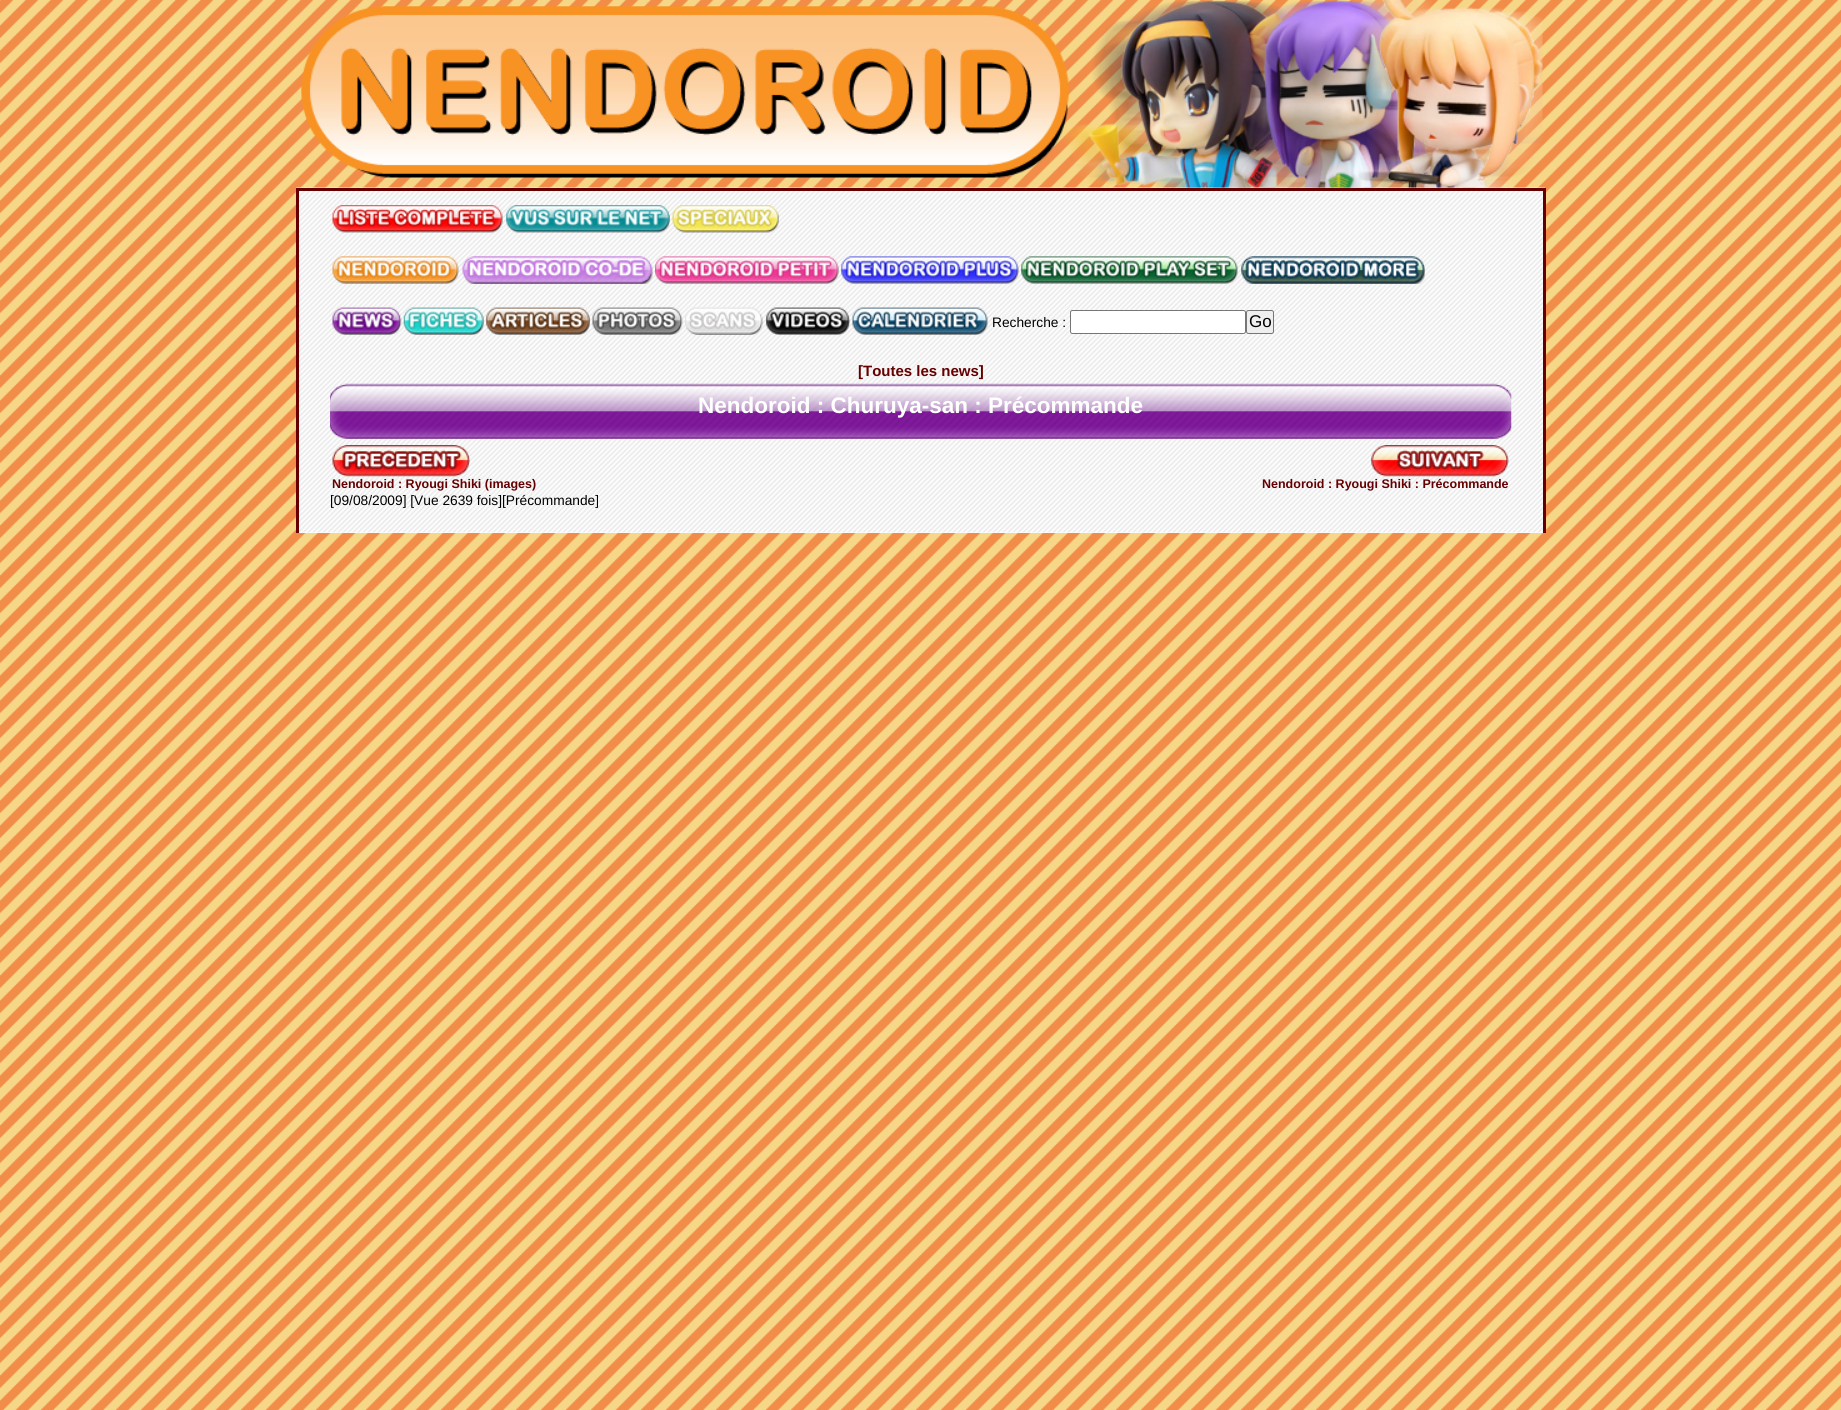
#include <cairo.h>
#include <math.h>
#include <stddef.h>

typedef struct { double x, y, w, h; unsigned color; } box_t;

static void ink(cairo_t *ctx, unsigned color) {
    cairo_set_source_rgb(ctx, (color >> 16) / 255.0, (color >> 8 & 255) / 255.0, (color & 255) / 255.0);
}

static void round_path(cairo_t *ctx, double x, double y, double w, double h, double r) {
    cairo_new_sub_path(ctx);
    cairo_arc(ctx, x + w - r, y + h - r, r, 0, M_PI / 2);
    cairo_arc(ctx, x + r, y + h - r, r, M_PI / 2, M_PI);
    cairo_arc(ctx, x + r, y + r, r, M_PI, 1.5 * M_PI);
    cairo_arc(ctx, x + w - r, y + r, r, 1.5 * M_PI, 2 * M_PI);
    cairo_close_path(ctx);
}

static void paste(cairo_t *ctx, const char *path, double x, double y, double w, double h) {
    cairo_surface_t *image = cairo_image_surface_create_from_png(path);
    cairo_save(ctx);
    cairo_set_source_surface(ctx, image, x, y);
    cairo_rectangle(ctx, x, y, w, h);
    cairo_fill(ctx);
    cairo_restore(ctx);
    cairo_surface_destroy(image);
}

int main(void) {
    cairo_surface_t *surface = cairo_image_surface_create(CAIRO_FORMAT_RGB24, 1841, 1410);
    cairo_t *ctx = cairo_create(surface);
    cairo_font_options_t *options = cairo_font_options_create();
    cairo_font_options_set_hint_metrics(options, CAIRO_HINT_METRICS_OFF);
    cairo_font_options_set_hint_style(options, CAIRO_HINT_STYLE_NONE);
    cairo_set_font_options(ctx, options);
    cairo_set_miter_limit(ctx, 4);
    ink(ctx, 0xFFFFFF);
    cairo_paint(ctx);
    paste(ctx, "media/1.png", 0, 0, 1841, 1410);
    ink(ctx, 0xFFFFFF);
    cairo_rectangle(ctx, 299, 532, 1244, 1);
    cairo_fill(ctx);
    paste(ctx, "media/3.png", 296, 187, 1249, 346);
    paste(ctx, "media/2.png", 301, 0, 1242, 188);
    {
        static const box_t items[] = {
            {296, 188, 1249, 3, 0x660000},
            {1543, 188, 3, 345, 0x660000},
            {296, 188, 3, 345, 0x660000},
        };
        for (size_t i = 0; i < sizeof items / sizeof *items; i++) {
            ink(ctx, items[i].color);
            cairo_rectangle(ctx, items[i].x, items[i].y, items[i].w, items[i].h);
            cairo_fill(ctx);
        }
    }
    paste(ctx, "media/4.png", 332, 205, 171, 28);
    paste(ctx, "media/5.png", 506, 205, 164, 28);
    paste(ctx, "media/6.png", 672, 205, 107, 28);
    paste(ctx, "media/7.png", 332, 256, 127, 28);
    paste(ctx, "media/8.png", 462, 256, 191, 28);
    paste(ctx, "media/9.png", 655, 256, 184, 28);
    paste(ctx, "media/10.png", 841, 256, 178, 28);
    paste(ctx, "media/11.png", 1021, 256, 217, 28);
    paste(ctx, "media/12.png", 1241, 256, 184, 28);
    paste(ctx, "media/13.png", 332, 307, 70, 28);
    paste(ctx, "media/14.png", 403, 307, 81, 28);
    paste(ctx, "media/15.png", 486, 307, 104, 28);
    paste(ctx, "media/16.png", 592, 307, 91, 28);
    paste(ctx, "media/17.png", 685, 307, 78, 28);
    paste(ctx, "media/18.png", 766, 307, 84, 28);
    paste(ctx, "media/19.png", 852, 307, 136, 28);
    cairo_select_font_face(ctx, "Liberation Sans", CAIRO_FONT_SLANT_NORMAL, CAIRO_FONT_WEIGHT_NORMAL);
    cairo_set_font_size(ctx, 13.75);
    ink(ctx, 0x000000);
    cairo_move_to(ctx, 992, 327);
    cairo_show_text(ctx, "Recherche :");
    ink(ctx, 0xFFFFFF);
    round_path(ctx, 1070.5, 310.5, 175, 23, 2);
    cairo_fill_preserve(ctx);
    ink(ctx, 0x767676);
    cairo_set_line_width(ctx, 1);
    cairo_stroke(ctx);
    ink(ctx, 0xEFEFEF);
    round_path(ctx, 1246.5, 310.5, 27, 23, 2);
    cairo_fill_preserve(ctx);
    ink(ctx, 0x767676);
    cairo_stroke(ctx);
    cairo_set_font_size(ctx, 17);
    ink(ctx, 0x000000);
    cairo_move_to(ctx, 1249, 327);
    cairo_show_text(ctx, "Go");
    cairo_select_font_face(ctx, "Liberation Sans", CAIRO_FONT_SLANT_NORMAL, CAIRO_FONT_WEIGHT_BOLD);
    cairo_set_font_size(ctx, 15);
    ink(ctx, 0x660000);
    cairo_move_to(ctx, 858, 376);
    cairo_show_text(ctx, "[Toutes les news]");
    paste(ctx, "media/20.png", 330, 383, 1182, 56);
    cairo_set_font_size(ctx, 22.5);
    ink(ctx, 0xFFFFFF);
    cairo_move_to(ctx, 698, 413);
    cairo_show_text(ctx, "Nendoroid : Churuya-san : Précommande");
    paste(ctx, "media/21.png", 332, 445, 138, 32);
    cairo_set_font_size(ctx, 12.5);
    ink(ctx, 0x660000);
    cairo_move_to(ctx, 332, 488);
    cairo_show_text(ctx, "Nendoroid : Ryougi Shiki (images)");
    paste(ctx, "media/22.png", 1371, 445, 138, 32);
    cairo_move_to(ctx, 1262, 488);
    cairo_show_text(ctx, "Nendoroid : Ryougi Shiki : Précommande");
    cairo_select_font_face(ctx, "Liberation Sans", CAIRO_FONT_SLANT_NORMAL, CAIRO_FONT_WEIGHT_NORMAL);
    cairo_set_font_size(ctx, 13.75);
    ink(ctx, 0x000000);
    cairo_move_to(ctx, 330, 505);
    cairo_show_text(ctx, "[09/08/2009] [Vue 2639 fois][Précommande]");
    cairo_surface_write_to_png(surface, "image.png");
    cairo_font_options_destroy(options);
    cairo_destroy(ctx);
    cairo_surface_destroy(surface);
    return 0;
}
